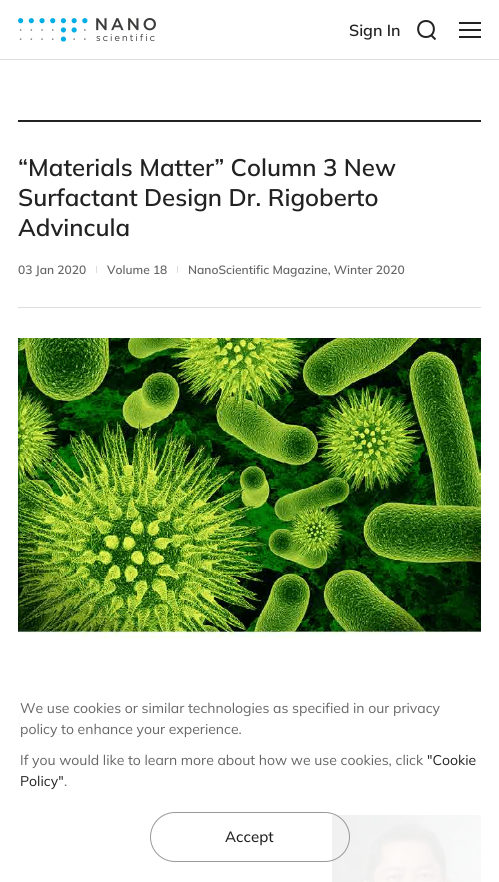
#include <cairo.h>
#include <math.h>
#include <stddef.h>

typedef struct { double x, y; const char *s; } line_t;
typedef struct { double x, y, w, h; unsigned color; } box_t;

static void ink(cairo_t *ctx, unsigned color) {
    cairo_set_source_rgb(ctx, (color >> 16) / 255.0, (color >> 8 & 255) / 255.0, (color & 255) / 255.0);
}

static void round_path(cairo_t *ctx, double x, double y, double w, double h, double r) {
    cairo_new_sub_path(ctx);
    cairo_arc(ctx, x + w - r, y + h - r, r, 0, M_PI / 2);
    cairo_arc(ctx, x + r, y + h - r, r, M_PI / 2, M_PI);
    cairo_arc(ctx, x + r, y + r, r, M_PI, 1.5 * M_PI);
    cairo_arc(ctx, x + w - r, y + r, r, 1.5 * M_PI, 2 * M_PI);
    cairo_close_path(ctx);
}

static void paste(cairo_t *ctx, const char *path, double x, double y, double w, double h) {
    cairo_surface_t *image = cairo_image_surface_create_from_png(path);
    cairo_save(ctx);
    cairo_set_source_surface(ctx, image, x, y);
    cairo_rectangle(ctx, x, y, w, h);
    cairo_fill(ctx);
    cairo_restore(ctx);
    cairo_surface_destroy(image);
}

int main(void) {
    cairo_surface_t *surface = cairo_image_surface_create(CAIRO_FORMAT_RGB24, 499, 882);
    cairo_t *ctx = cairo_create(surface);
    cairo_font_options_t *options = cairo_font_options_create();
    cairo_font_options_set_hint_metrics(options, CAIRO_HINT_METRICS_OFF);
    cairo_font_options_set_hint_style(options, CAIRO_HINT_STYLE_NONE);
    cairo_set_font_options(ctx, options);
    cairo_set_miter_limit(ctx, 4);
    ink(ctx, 0xFFFFFF);
    cairo_paint(ctx);
    paste(ctx, "media/1.png", 18, 18, 138, 24);
    cairo_select_font_face(ctx, "Mulish SemiBold", CAIRO_FONT_SLANT_NORMAL, CAIRO_FONT_WEIGHT_NORMAL);
    cairo_set_font_size(ctx, 16);
    ink(ctx, 0x222222);
    cairo_move_to(ctx, 349, 36);
    cairo_show_text(ctx, "Sign In");
    cairo_new_path(ctx);
    cairo_move_to(ctx, 426, 21);
    cairo_curve_to(ctx, 436.5, 21, 436.5, 37, 426, 37);
    cairo_curve_to(ctx, 415.5, 37, 415.5, 21, 426, 21);
    cairo_close_path(ctx);
    cairo_move_to(ctx, 431.5, 35.5);
    cairo_line_to(ctx, 435.5, 39.5);
    cairo_stroke(ctx);
    {
        static const box_t items[] = {
            {459, 29, 22, 2, 0x222222},
            {459, 22, 22, 2, 0x222222},
            {459, 36, 22, 2, 0x222222},
            {0, 59, 499, 1, 0xDDDDDD},
            {18, 120, 463, 2, 0x222222},
        };
        for (size_t i = 0; i < sizeof items / sizeof *items; i++) {
            ink(ctx, items[i].color);
            cairo_rectangle(ctx, items[i].x, items[i].y, items[i].w, items[i].h);
            cairo_fill(ctx);
        }
    }
    cairo_set_font_size(ctx, 24);
    {
        static const line_t items[] = {
            {18, 176, "“Materials Matter” Column 3 New"},
            {18, 206, "Surfactant Design Dr. Rigoberto"},
            {18, 236, "Advincula"},
        };
        for (size_t i = 0; i < sizeof items / sizeof *items; i++) {
            cairo_move_to(ctx, items[i].x, items[i].y);
            cairo_show_text(ctx, items[i].s);
        }
    }
    cairo_set_font_size(ctx, 12);
    ink(ctx, 0x666666);
    cairo_move_to(ctx, 18, 274);
    cairo_show_text(ctx, "03 Jan 2020");
    ink(ctx, 0xDDDDDD);
    cairo_rectangle(ctx, 96, 266, 1, 7);
    cairo_fill(ctx);
    ink(ctx, 0x666666);
    cairo_move_to(ctx, 107, 274);
    cairo_show_text(ctx, "Volume 18");
    ink(ctx, 0xDDDDDD);
    cairo_rectangle(ctx, 177, 266, 1, 7);
    cairo_fill(ctx);
    ink(ctx, 0x666666);
    cairo_move_to(ctx, 188, 274);
    cairo_show_text(ctx, "NanoScientific Magazine, Winter 2020");
    ink(ctx, 0xDDDDDD);
    cairo_rectangle(ctx, 18, 307, 463, 1);
    cairo_fill(ctx);
    paste(ctx, "media/2.png", 18, 338, 463, 300);
    round_path(ctx, 18.5, 707.5, 115, 27, 13.5);
    ink(ctx, 0x999999);
    cairo_set_line_width(ctx, 1);
    cairo_stroke(ctx);
    ink(ctx, 0xDDDDDD);
    cairo_rectangle(ctx, 18, 765, 463, 1);
    cairo_fill(ctx);
    paste(ctx, "media/3.png", 332, 815, 149, 67);
    cairo_set_source_rgba(ctx, 1, 1, 1, 0.93);
    cairo_rectangle(ctx, 18, 707, 463, 175);
    cairo_fill(ctx);
    cairo_select_font_face(ctx, "Mulish", CAIRO_FONT_SLANT_NORMAL, CAIRO_FONT_WEIGHT_NORMAL);
    cairo_set_font_size(ctx, 14);
    ink(ctx, 0x666666);
    {
        static const line_t items[] = {
            {20, 713, "We use cookies or similar technologies as specified in our privacy"},
            {20, 734, "policy to enhance your experience."},
            {20, 765, "If you would like to learn more about how we use cookies, click"},
        };
        for (size_t i = 0; i < sizeof items / sizeof *items; i++) {
            cairo_move_to(ctx, items[i].x, items[i].y);
            cairo_show_text(ctx, items[i].s);
        }
    }
    ink(ctx, 0x222222);
    cairo_move_to(ctx, 427, 765);
    cairo_show_text(ctx, "\"Cookie");
    cairo_move_to(ctx, 20, 786);
    cairo_show_text(ctx, "Policy\"");
    ink(ctx, 0x666666);
    cairo_move_to(ctx, 64, 786);
    cairo_show_text(ctx, ".");
    round_path(ctx, 150.5, 812.5, 199, 49, 24.5);
    ink(ctx, 0x999999);
    cairo_stroke(ctx);
    cairo_select_font_face(ctx, "Mulish Medium", CAIRO_FONT_SLANT_NORMAL, CAIRO_FONT_WEIGHT_NORMAL);
    cairo_set_font_size(ctx, 15);
    ink(ctx, 0x222222);
    cairo_move_to(ctx, 225, 842);
    cairo_show_text(ctx, "Accept");
    cairo_surface_write_to_png(surface, "image.png");
    cairo_font_options_destroy(options);
    cairo_destroy(ctx);
    cairo_surface_destroy(surface);
    return 0;
}
